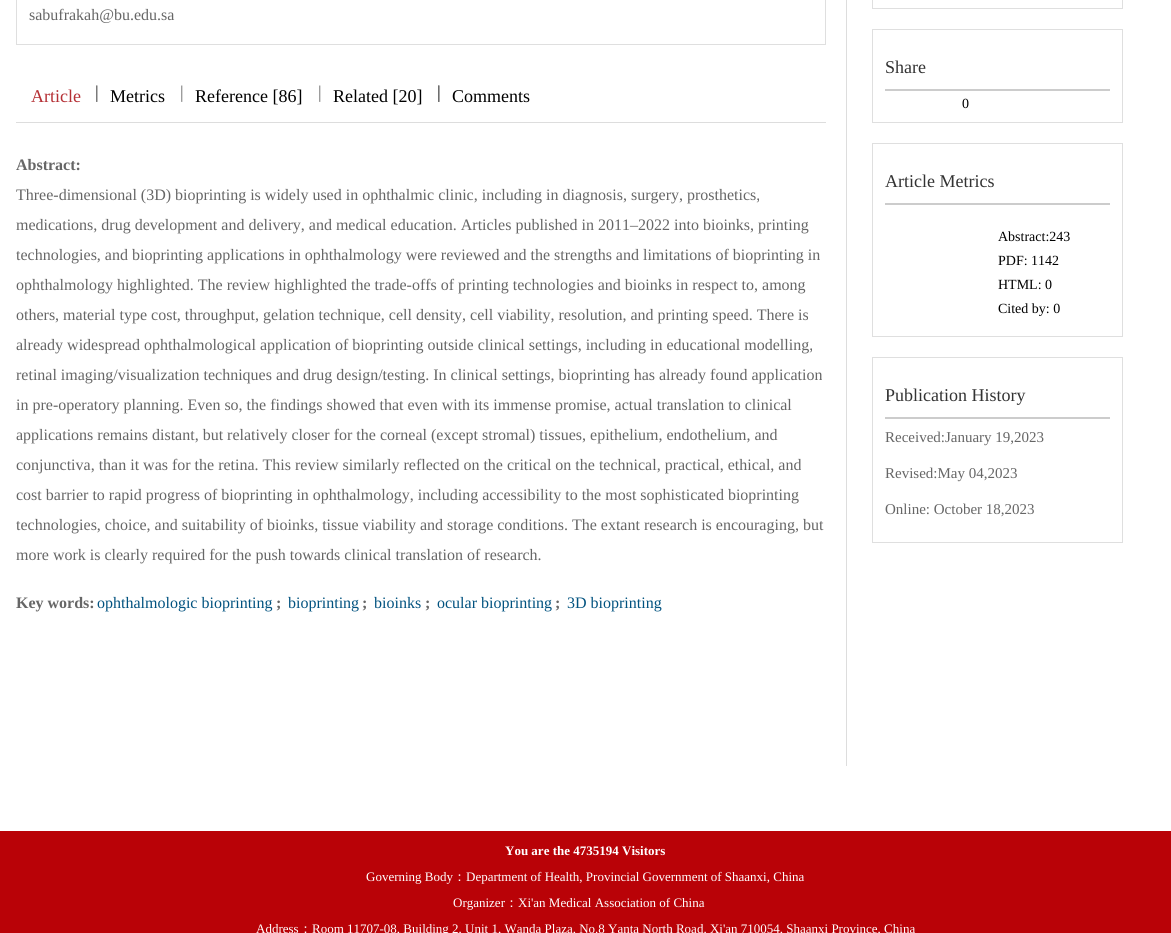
#include <cairo.h>
#include <math.h>
#include <stddef.h>

typedef struct { double x, y; const char *s; } line_t;

static void ink(cairo_t *ctx, unsigned color) {
    cairo_set_source_rgb(ctx, (color >> 16) / 255.0, (color >> 8 & 255) / 255.0, (color & 255) / 255.0);
}

int main(void) {
    cairo_surface_t *surface = cairo_image_surface_create(CAIRO_FORMAT_RGB24, 1171, 933);
    cairo_t *ctx = cairo_create(surface);
    cairo_font_options_t *options = cairo_font_options_create();
    cairo_font_options_set_hint_metrics(options, CAIRO_HINT_METRICS_OFF);
    cairo_font_options_set_hint_style(options, CAIRO_HINT_STYLE_NONE);
    cairo_set_font_options(ctx, options);
    cairo_set_miter_limit(ctx, 4);
    ink(ctx, 0xFFFFFF);
    cairo_paint(ctx);
    cairo_rectangle(ctx, 16.5, -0.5, 809, 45);
    ink(ctx, 0xDFDFDF);
    cairo_set_line_width(ctx, 1);
    cairo_stroke(ctx);
    cairo_select_font_face(ctx, "Liberation Serif", CAIRO_FONT_SLANT_NORMAL, CAIRO_FONT_WEIGHT_NORMAL);
    cairo_set_font_size(ctx, 16);
    ink(ctx, 0x666666);
    cairo_move_to(ctx, 29, 20);
    cairo_show_text(ctx, "sabufrakah@bu.edu.sa");
    ink(ctx, 0xDDDDDD);
    cairo_rectangle(ctx, 16, 122, 810, 1);
    cairo_fill(ctx);
    cairo_set_font_size(ctx, 18);
    ink(ctx, 0x666666);
    {
        static const line_t items[] = {
            {95, 98, "|"},
            {95, 98, "|"},
            {180, 98, "|"},
            {318, 98, "|"},
            {437, 98, "|"},
            {437, 98, "|"},
        };
        for (size_t i = 0; i < sizeof items / sizeof *items; i++) {
            cairo_move_to(ctx, items[i].x, items[i].y);
            cairo_show_text(ctx, items[i].s);
        }
    }
    ink(ctx, 0xB53035);
    cairo_move_to(ctx, 31, 102);
    cairo_show_text(ctx, "Article");
    ink(ctx, 0x000000);
    {
        static const line_t items[] = {
            {110, 102, "Metrics"},
            {195, 102, "Reference [86]"},
            {333, 102, "Related [20]"},
        };
        for (size_t i = 0; i < sizeof items / sizeof *items; i++) {
            cairo_move_to(ctx, items[i].x, items[i].y);
            cairo_show_text(ctx, items[i].s);
        }
    }
    ink(ctx, 0x666666);
    cairo_move_to(ctx, 437, 98);
    cairo_show_text(ctx, "|");
    ink(ctx, 0x000000);
    cairo_move_to(ctx, 452, 102);
    cairo_show_text(ctx, "Comments");
    cairo_select_font_face(ctx, "Liberation Serif", CAIRO_FONT_SLANT_NORMAL, CAIRO_FONT_WEIGHT_BOLD);
    cairo_set_font_size(ctx, 16);
    ink(ctx, 0x666666);
    cairo_move_to(ctx, 16, 170);
    cairo_show_text(ctx, "Abstract:");
    cairo_save(ctx);
    cairo_rectangle(ctx, 16, 0, 1140, 766);
    cairo_clip(ctx);
    cairo_select_font_face(ctx, "Liberation Serif", CAIRO_FONT_SLANT_NORMAL, CAIRO_FONT_WEIGHT_NORMAL);
    cairo_move_to(ctx, 16, 200);
    cairo_show_text(ctx, "Three-dimensional (3D) bioprinting is widely used in ophthalmic clinic, including in diagnosis, surgery, prosthetics,");
    cairo_restore(ctx);
    cairo_select_font_face(ctx, "Liberation Serif", CAIRO_FONT_SLANT_NORMAL, CAIRO_FONT_WEIGHT_NORMAL);
    {
        static const line_t items[] = {
            {16, 230, "medications, drug development and delivery, and medical education. Articles published in 2011–2022 into bioinks, printing"},
            {16, 260, "technologies, and bioprinting applications in ophthalmology were reviewed and the strengths and limitations of bioprinting in"},
            {16, 290, "ophthalmology highlighted. The review highlighted the trade-offs of printing technologies and bioinks in respect to, among"},
            {16, 320, "others, material type cost, throughput, gelation technique, cell density, cell viability, resolution, and printing speed. There is"},
            {16, 350, "already widespread ophthalmological application of bioprinting outside clinical settings, including in educational modelling,"},
            {16, 380, "retinal imaging/visualization techniques and drug design/testing. In clinical settings, bioprinting has already found application"},
            {16, 410, "in pre-operatory planning. Even so, the findings showed that even with its immense promise, actual translation to clinical"},
            {16, 440, "applications remains distant, but relatively closer for the corneal (except stromal) tissues, epithelium, endothelium, and"},
            {16, 470, "conjunctiva, than it was for the retina. This review similarly reflected on the critical on the technical, practical, ethical, and"},
            {16, 500, "cost barrier to rapid progress of bioprinting in ophthalmology, including accessibility to the most sophisticated bioprinting"},
            {16, 530, "technologies, choice, and suitability of bioinks, tissue viability and storage conditions. The extant research is encouraging, but"},
            {16, 560, "more work is clearly required for the push towards clinical translation of research."},
        };
        for (size_t i = 0; i < sizeof items / sizeof *items; i++) {
            cairo_move_to(ctx, items[i].x, items[i].y);
            cairo_show_text(ctx, items[i].s);
        }
    }
    cairo_select_font_face(ctx, "Liberation Serif", CAIRO_FONT_SLANT_NORMAL, CAIRO_FONT_WEIGHT_BOLD);
    cairo_move_to(ctx, 16, 608);
    cairo_show_text(ctx, "Key words:");
    cairo_select_font_face(ctx, "Liberation Serif", CAIRO_FONT_SLANT_NORMAL, CAIRO_FONT_WEIGHT_NORMAL);
    ink(ctx, 0x01527F);
    cairo_move_to(ctx, 97, 608);
    cairo_show_text(ctx, "ophthalmologic bioprinting");
    cairo_select_font_face(ctx, "Liberation Serif", CAIRO_FONT_SLANT_NORMAL, CAIRO_FONT_WEIGHT_BOLD);
    ink(ctx, 0x666666);
    cairo_move_to(ctx, 276, 608);
    cairo_show_text(ctx, ";");
    cairo_select_font_face(ctx, "Liberation Serif", CAIRO_FONT_SLANT_NORMAL, CAIRO_FONT_WEIGHT_NORMAL);
    ink(ctx, 0x01527F);
    cairo_move_to(ctx, 288, 608);
    cairo_show_text(ctx, "bioprinting");
    cairo_select_font_face(ctx, "Liberation Serif", CAIRO_FONT_SLANT_NORMAL, CAIRO_FONT_WEIGHT_BOLD);
    ink(ctx, 0x666666);
    cairo_move_to(ctx, 362, 608);
    cairo_show_text(ctx, ";");
    cairo_select_font_face(ctx, "Liberation Serif", CAIRO_FONT_SLANT_NORMAL, CAIRO_FONT_WEIGHT_NORMAL);
    ink(ctx, 0x01527F);
    cairo_move_to(ctx, 374, 608);
    cairo_show_text(ctx, "bioinks");
    cairo_select_font_face(ctx, "Liberation Serif", CAIRO_FONT_SLANT_NORMAL, CAIRO_FONT_WEIGHT_BOLD);
    ink(ctx, 0x666666);
    cairo_move_to(ctx, 425, 608);
    cairo_show_text(ctx, ";");
    cairo_select_font_face(ctx, "Liberation Serif", CAIRO_FONT_SLANT_NORMAL, CAIRO_FONT_WEIGHT_NORMAL);
    ink(ctx, 0x01527F);
    cairo_move_to(ctx, 437, 608);
    cairo_show_text(ctx, "ocular bioprinting");
    cairo_select_font_face(ctx, "Liberation Serif", CAIRO_FONT_SLANT_NORMAL, CAIRO_FONT_WEIGHT_BOLD);
    ink(ctx, 0x666666);
    cairo_move_to(ctx, 555, 608);
    cairo_show_text(ctx, ";");
    cairo_select_font_face(ctx, "Liberation Serif", CAIRO_FONT_SLANT_NORMAL, CAIRO_FONT_WEIGHT_NORMAL);
    ink(ctx, 0x01527F);
    cairo_move_to(ctx, 567, 608);
    cairo_show_text(ctx, "3D bioprinting");
    ink(ctx, 0xDDDDDD);
    cairo_rectangle(ctx, 846, 0, 1, 766);
    cairo_fill(ctx);
    cairo_rectangle(ctx, 872.5, -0.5, 250, 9);
    ink(ctx, 0xDFDFDF);
    cairo_stroke(ctx);
    cairo_rectangle(ctx, 872.5, 29.5, 250, 93);
    cairo_stroke(ctx);
    ink(ctx, 0xCCCCCC);
    cairo_rectangle(ctx, 885, 89, 225, 2);
    cairo_fill(ctx);
    cairo_set_font_size(ctx, 18);
    ink(ctx, 0x333333);
    cairo_move_to(ctx, 885, 73);
    cairo_show_text(ctx, "Share");
    cairo_set_font_size(ctx, 14);
    ink(ctx, 0x000000);
    cairo_move_to(ctx, 962, 108);
    cairo_show_text(ctx, "0");
    cairo_rectangle(ctx, 872.5, 143.5, 250, 193);
    ink(ctx, 0xDFDFDF);
    cairo_stroke(ctx);
    ink(ctx, 0xCCCCCC);
    cairo_rectangle(ctx, 885, 203, 225, 2);
    cairo_fill(ctx);
    cairo_set_font_size(ctx, 18);
    ink(ctx, 0x333333);
    cairo_move_to(ctx, 885, 187);
    cairo_show_text(ctx, "Article Metrics");
    cairo_set_font_size(ctx, 14);
    ink(ctx, 0x000000);
    {
        static const line_t items[] = {
            {998, 241, "Abstract:243"},
            {998, 265, "PDF: 1142"},
            {998, 289, "HTML: 0"},
            {998, 313, "Cited by: 0"},
        };
        for (size_t i = 0; i < sizeof items / sizeof *items; i++) {
            cairo_move_to(ctx, items[i].x, items[i].y);
            cairo_show_text(ctx, items[i].s);
        }
    }
    cairo_rectangle(ctx, 872.5, 357.5, 250, 185);
    ink(ctx, 0xDFDFDF);
    cairo_stroke(ctx);
    ink(ctx, 0xCCCCCC);
    cairo_rectangle(ctx, 885, 417, 225, 2);
    cairo_fill(ctx);
    cairo_set_font_size(ctx, 18);
    ink(ctx, 0x333333);
    cairo_move_to(ctx, 885, 401);
    cairo_show_text(ctx, "Publication History");
    cairo_set_font_size(ctx, 15);
    ink(ctx, 0x666666);
    {
        static const line_t items[] = {
            {885, 442, "Received:January 19,2023"},
            {885, 478, "Revised:May 04,2023"},
            {885, 514, "Online: October 18,2023"},
        };
        for (size_t i = 0; i < sizeof items / sizeof *items; i++) {
            cairo_move_to(ctx, items[i].x, items[i].y);
            cairo_show_text(ctx, items[i].s);
        }
    }
    ink(ctx, 0xB90207);
    cairo_rectangle(ctx, 0, 831, 1171, 102);
    cairo_fill(ctx);
    cairo_select_font_face(ctx, "Liberation Serif", CAIRO_FONT_SLANT_NORMAL, CAIRO_FONT_WEIGHT_BOLD);
    cairo_set_font_size(ctx, 13);
    ink(ctx, 0xFFFFFF);
    cairo_move_to(ctx, 505, 855);
    cairo_show_text(ctx, "You are the 4735194 Visitors");
    cairo_select_font_face(ctx, "Liberation Serif", CAIRO_FONT_SLANT_NORMAL, CAIRO_FONT_WEIGHT_NORMAL);
    cairo_move_to(ctx, 366, 881);
    cairo_show_text(ctx, "Governing Body");
    cairo_select_font_face(ctx, "WenQuanYi Zen Hei Medium", CAIRO_FONT_SLANT_NORMAL, CAIRO_FONT_WEIGHT_NORMAL);
    cairo_move_to(ctx, 453, 881);
    cairo_show_text(ctx, "：");
    cairo_select_font_face(ctx, "Liberation Serif", CAIRO_FONT_SLANT_NORMAL, CAIRO_FONT_WEIGHT_NORMAL);
    cairo_move_to(ctx, 466, 881);
    cairo_show_text(ctx, "Department of Health, Provincial Government of Shaanxi, China");
    cairo_move_to(ctx, 453, 907);
    cairo_show_text(ctx, "Organizer");
    cairo_select_font_face(ctx, "WenQuanYi Zen Hei Medium", CAIRO_FONT_SLANT_NORMAL, CAIRO_FONT_WEIGHT_NORMAL);
    cairo_move_to(ctx, 505, 907);
    cairo_show_text(ctx, "：");
    cairo_select_font_face(ctx, "Liberation Serif", CAIRO_FONT_SLANT_NORMAL, CAIRO_FONT_WEIGHT_NORMAL);
    cairo_move_to(ctx, 518, 907);
    cairo_show_text(ctx, "Xi'an Medical Association of China");
    cairo_move_to(ctx, 256, 933);
    cairo_show_text(ctx, "Address");
    cairo_select_font_face(ctx, "WenQuanYi Zen Hei Medium", CAIRO_FONT_SLANT_NORMAL, CAIRO_FONT_WEIGHT_NORMAL);
    cairo_move_to(ctx, 299, 933);
    cairo_show_text(ctx, "：");
    cairo_select_font_face(ctx, "Liberation Serif", CAIRO_FONT_SLANT_NORMAL, CAIRO_FONT_WEIGHT_NORMAL);
    cairo_move_to(ctx, 312, 933);
    cairo_show_text(ctx, "Room 11707-08, Building 2, Unit 1, Wanda Plaza, No.8 Yanta North Road, Xi'an 710054, Shaanxi Province, China");
    cairo_surface_write_to_png(surface, "image.png");
    cairo_font_options_destroy(options);
    cairo_destroy(ctx);
    cairo_surface_destroy(surface);
    return 0;
}
